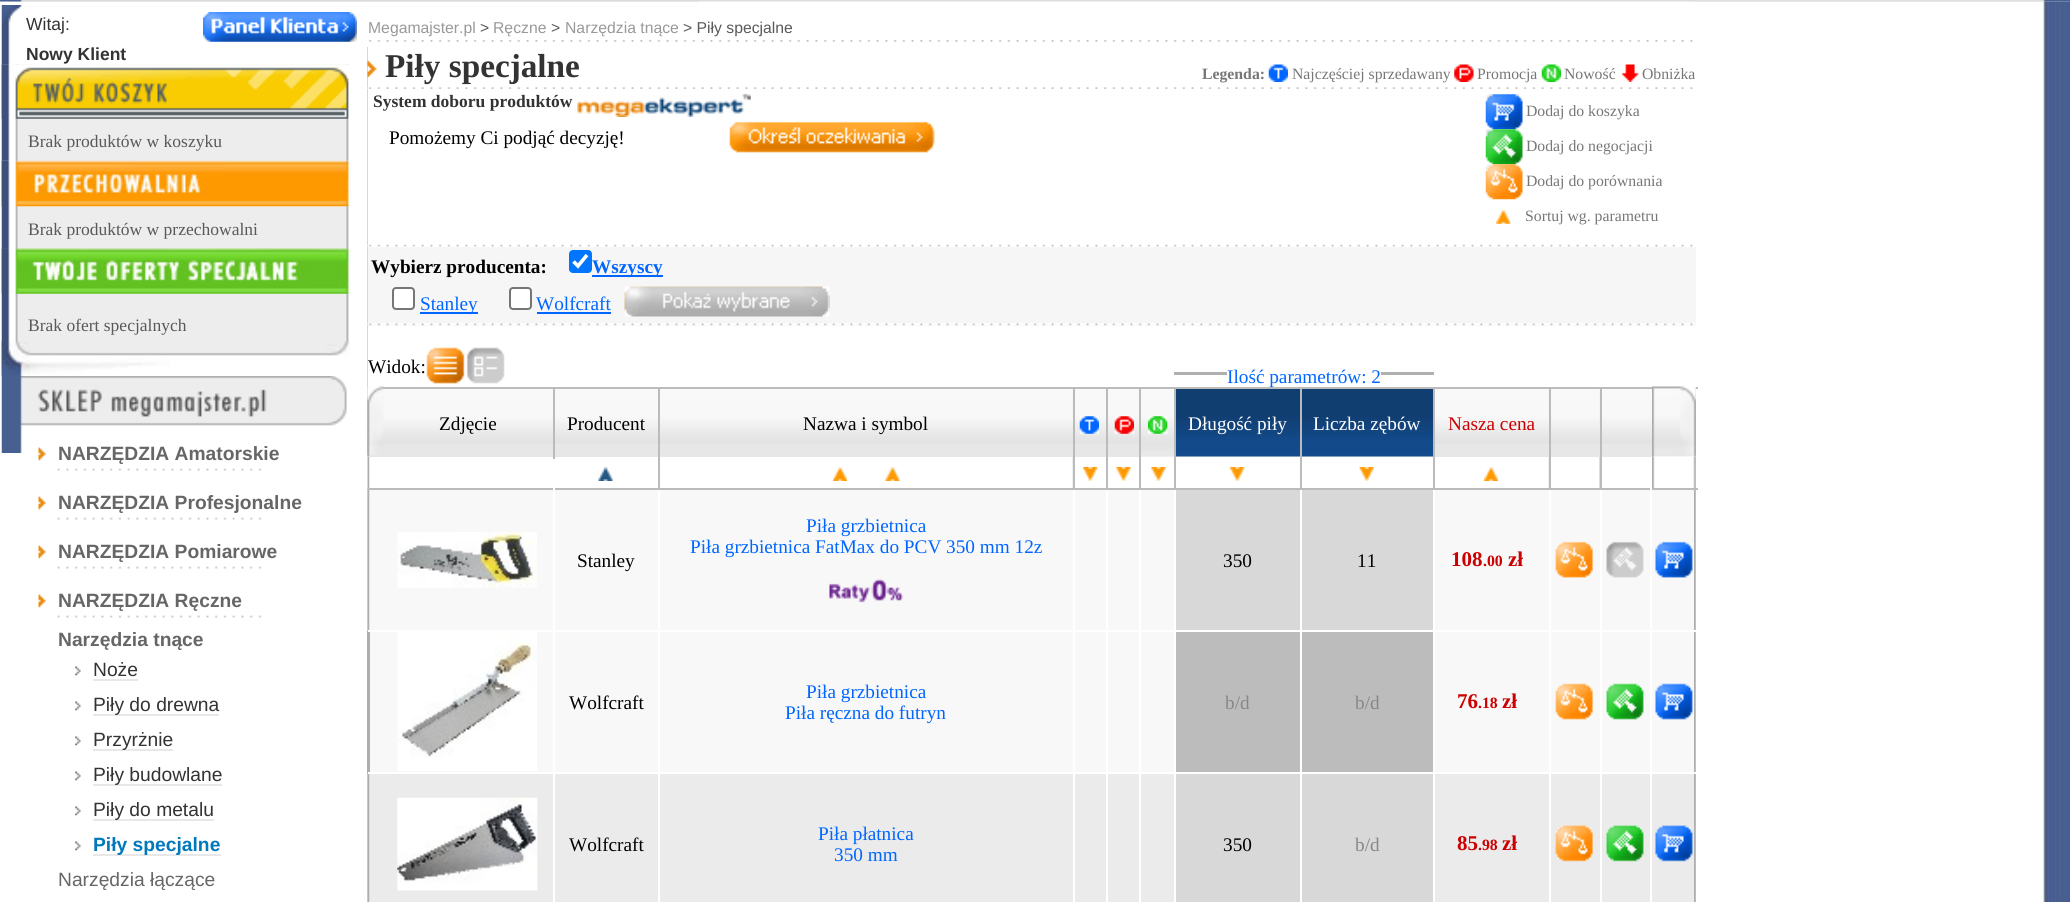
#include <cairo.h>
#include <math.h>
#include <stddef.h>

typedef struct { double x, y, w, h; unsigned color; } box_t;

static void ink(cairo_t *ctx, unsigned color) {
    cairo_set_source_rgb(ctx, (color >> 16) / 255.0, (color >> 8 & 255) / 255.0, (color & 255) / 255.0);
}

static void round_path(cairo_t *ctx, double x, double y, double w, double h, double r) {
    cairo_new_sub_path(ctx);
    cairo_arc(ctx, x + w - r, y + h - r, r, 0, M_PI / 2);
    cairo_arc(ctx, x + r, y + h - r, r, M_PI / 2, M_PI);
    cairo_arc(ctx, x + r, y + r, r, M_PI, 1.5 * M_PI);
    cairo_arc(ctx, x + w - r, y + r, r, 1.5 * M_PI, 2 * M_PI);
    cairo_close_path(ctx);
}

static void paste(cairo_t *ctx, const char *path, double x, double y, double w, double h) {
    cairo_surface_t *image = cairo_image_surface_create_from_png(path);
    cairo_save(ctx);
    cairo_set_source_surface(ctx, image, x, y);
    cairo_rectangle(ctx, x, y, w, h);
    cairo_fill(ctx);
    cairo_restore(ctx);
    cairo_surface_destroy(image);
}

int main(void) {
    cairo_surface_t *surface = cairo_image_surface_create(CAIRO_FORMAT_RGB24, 2070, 902);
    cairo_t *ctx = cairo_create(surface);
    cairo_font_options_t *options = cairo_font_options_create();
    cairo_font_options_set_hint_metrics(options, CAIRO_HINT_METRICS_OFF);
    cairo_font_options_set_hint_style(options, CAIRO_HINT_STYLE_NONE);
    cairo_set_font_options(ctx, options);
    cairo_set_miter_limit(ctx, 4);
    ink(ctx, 0xFFFFFF);
    cairo_paint(ctx);
    paste(ctx, "media/1.png", 2042, 1, 28, 901);
    paste(ctx, "media/2.png", 0, 0, 2070, 2);
    paste(ctx, "media/3.png", 1692, 0, 378, 2);
    paste(ctx, "media/4.png", 0, 0, 698, 2);
    paste(ctx, "media/5.png", 1, 5, 21, 60);
    cairo_select_font_face(ctx, "Liberation Sans", CAIRO_FONT_SLANT_NORMAL, CAIRO_FONT_WEIGHT_NORMAL);
    cairo_set_font_size(ctx, 17.5);
    ink(ctx, 0x333333);
    cairo_move_to(ctx, 26, 30);
    cairo_show_text(ctx, "Witaj:");
    paste(ctx, "media/6.png", 203, 12, 154, 30);
    cairo_select_font_face(ctx, "Liberation Sans", CAIRO_FONT_SLANT_NORMAL, CAIRO_FONT_WEIGHT_BOLD);
    cairo_move_to(ctx, 26, 60);
    cairo_show_text(ctx, "Nowy Klient");
    paste(ctx, "media/7.png", 1, 64, 348, 97);
    paste(ctx, "media/8.png", 1, 64, 348, 55);
    cairo_select_font_face(ctx, "Liberation Serif", CAIRO_FONT_SLANT_NORMAL, CAIRO_FONT_WEIGHT_NORMAL);
    ink(ctx, 0x595959);
    cairo_move_to(ctx, 28, 147);
    cairo_show_text(ctx, "Brak produktów w koszyku");
    paste(ctx, "media/11.png", 1, 248, 348, 128);
    paste(ctx, "media/12.png", 1, 248, 351, 46);
    paste(ctx, "media/9.png", 1, 160, 348, 89);
    paste(ctx, "media/10.png", 1, 160, 351, 47);
    cairo_move_to(ctx, 28, 235);
    cairo_show_text(ctx, "Brak produktów w przechowalni");
    paste(ctx, "media/13.png", 1, 341, 349, 35);
    cairo_move_to(ctx, 28, 331);
    cairo_show_text(ctx, "Brak ofert specjalnych");
    paste(ctx, "media/14.png", 1, 376, 346, 77);
    paste(ctx, "media/15.png", 38, 447, 224, 24);
    cairo_select_font_face(ctx, "Liberation Sans", CAIRO_FONT_SLANT_NORMAL, CAIRO_FONT_WEIGHT_BOLD);
    cairo_set_font_size(ctx, 19.25);
    ink(ctx, 0x666666);
    cairo_move_to(ctx, 58, 460);
    cairo_show_text(ctx, "NARZĘDZIA Amatorskie");
    paste(ctx, "media/15.png", 38, 496, 224, 24);
    cairo_move_to(ctx, 58, 509);
    cairo_show_text(ctx, "NARZĘDZIA Profesjonalne");
    paste(ctx, "media/15.png", 38, 545, 224, 24);
    cairo_move_to(ctx, 58, 558);
    cairo_show_text(ctx, "NARZĘDZIA Pomiarowe");
    paste(ctx, "media/15.png", 38, 594, 224, 24);
    cairo_move_to(ctx, 58, 607);
    cairo_show_text(ctx, "NARZĘDZIA Ręczne");
    cairo_move_to(ctx, 58, 646);
    cairo_show_text(ctx, "Narzędzia tnące");
    paste(ctx, "media/16.png", 75, 666, 6, 10);
    cairo_select_font_face(ctx, "Liberation Sans", CAIRO_FONT_SLANT_NORMAL, CAIRO_FONT_WEIGHT_NORMAL);
    ink(ctx, 0x333333);
    cairo_move_to(ctx, 93, 676);
    cairo_show_text(ctx, "Noże");
    ink(ctx, 0xE8E8E8);
    cairo_rectangle(ctx, 93, 679, 45, 2);
    cairo_fill(ctx);
    paste(ctx, "media/16.png", 75, 701, 6, 10);
    cairo_rectangle(ctx, 93, 714, 126, 2);
    cairo_fill(ctx);
    ink(ctx, 0x333333);
    cairo_move_to(ctx, 93, 711);
    cairo_show_text(ctx, "Piły do drewna");
    paste(ctx, "media/16.png", 75, 736, 6, 10);
    ink(ctx, 0xE8E8E8);
    cairo_rectangle(ctx, 93, 749, 80, 2);
    cairo_fill(ctx);
    ink(ctx, 0x333333);
    cairo_move_to(ctx, 93, 746);
    cairo_show_text(ctx, "Przyrżnie");
    paste(ctx, "media/16.png", 75, 771, 6, 10);
    ink(ctx, 0xE8E8E8);
    cairo_rectangle(ctx, 93, 784, 129, 2);
    cairo_fill(ctx);
    ink(ctx, 0x333333);
    cairo_move_to(ctx, 93, 781);
    cairo_show_text(ctx, "Piły budowlane");
    paste(ctx, "media/16.png", 75, 806, 6, 10);
    ink(ctx, 0xE8E8E8);
    cairo_rectangle(ctx, 93, 819, 121, 2);
    cairo_fill(ctx);
    ink(ctx, 0x333333);
    cairo_move_to(ctx, 93, 816);
    cairo_show_text(ctx, "Piły do metalu");
    paste(ctx, "media/16.png", 75, 841, 6, 10);
    ink(ctx, 0xE8E8E8);
    cairo_rectangle(ctx, 93, 854, 128, 2);
    cairo_fill(ctx);
    cairo_select_font_face(ctx, "Liberation Sans", CAIRO_FONT_SLANT_NORMAL, CAIRO_FONT_WEIGHT_BOLD);
    ink(ctx, 0x0078BC);
    cairo_move_to(ctx, 93, 851);
    cairo_show_text(ctx, "Piły specjalne");
    cairo_select_font_face(ctx, "Liberation Sans", CAIRO_FONT_SLANT_NORMAL, CAIRO_FONT_WEIGHT_NORMAL);
    ink(ctx, 0x666666);
    cairo_move_to(ctx, 58, 886);
    cairo_show_text(ctx, "Narzędzia łączące");
    paste(ctx, "media/17.png", 368, 40, 1325, 2);
    cairo_set_font_size(ctx, 15.75);
    ink(ctx, 0x999999);
    cairo_move_to(ctx, 368, 33);
    cairo_show_text(ctx, "Megamajster.pl");
    ink(ctx, 0x595959);
    cairo_move_to(ctx, 480, 33);
    cairo_show_text(ctx, ">");
    ink(ctx, 0x999999);
    cairo_move_to(ctx, 493, 33);
    cairo_show_text(ctx, "Ręczne");
    ink(ctx, 0x595959);
    cairo_move_to(ctx, 551, 33);
    cairo_show_text(ctx, ">");
    ink(ctx, 0x999999);
    cairo_move_to(ctx, 565, 33);
    cairo_show_text(ctx, "Narzędzia tnące");
    ink(ctx, 0x595959);
    cairo_move_to(ctx, 683, 33);
    cairo_show_text(ctx, "> Piły specjalne");
    paste(ctx, "media/18.png", 367, 47, 1233, 855);
    ink(ctx, 0xFFFFFF);
    cairo_rectangle(ctx, 368, 47, 2, 200);
    cairo_fill(ctx);
    paste(ctx, "media/19.png", 367, 87, 1326, 2);
    paste(ctx, "media/20.png", 367, 60, 10, 17);
    cairo_select_font_face(ctx, "Liberation Serif", CAIRO_FONT_SLANT_NORMAL, CAIRO_FONT_WEIGHT_BOLD);
    cairo_set_font_size(ctx, 33.25);
    ink(ctx, 0x333333);
    cairo_move_to(ctx, 385, 77);
    cairo_show_text(ctx, "Piły specjalne");
    cairo_set_font_size(ctx, 15.75);
    ink(ctx, 0x777777);
    cairo_move_to(ctx, 1202, 79);
    cairo_show_text(ctx, "Legenda:");
    paste(ctx, "media/21.png", 1268, 64, 20, 18);
    cairo_select_font_face(ctx, "Liberation Serif", CAIRO_FONT_SLANT_NORMAL, CAIRO_FONT_WEIGHT_NORMAL);
    cairo_move_to(ctx, 1292, 79);
    cairo_show_text(ctx, "Najczęściej sprzedawany");
    paste(ctx, "media/22.png", 1454, 64, 20, 18);
    cairo_move_to(ctx, 1477, 79);
    cairo_show_text(ctx, "Promocja");
    paste(ctx, "media/23.png", 1541, 64, 20, 18);
    cairo_move_to(ctx, 1564, 79);
    cairo_show_text(ctx, "Nowość");
    paste(ctx, "media/24.png", 1621, 64, 18, 18);
    cairo_move_to(ctx, 1642, 79);
    cairo_show_text(ctx, "Obniżka");
    paste(ctx, "media/25.png", 367, 244, 1326, 3);
    cairo_select_font_face(ctx, "Liberation Serif", CAIRO_FONT_SLANT_NORMAL, CAIRO_FONT_WEIGHT_BOLD);
    cairo_set_font_size(ctx, 17.5);
    ink(ctx, 0x333333);
    cairo_move_to(ctx, 373, 107);
    cairo_show_text(ctx, "System doboru produktów");
    paste(ctx, "media/26.png", 577, 93, 174, 24);
    cairo_select_font_face(ctx, "Liberation Serif", CAIRO_FONT_SLANT_NORMAL, CAIRO_FONT_WEIGHT_NORMAL);
    cairo_set_font_size(ctx, 19.25);
    ink(ctx, 0x000000);
    cairo_move_to(ctx, 389, 144);
    cairo_show_text(ctx, "Pomożemy Ci podjąć decyzję!");
    paste(ctx, "media/27.png", 729, 121, 206, 32);
    paste(ctx, "media/28.png", 1485, 94, 38, 36);
    cairo_set_font_size(ctx, 15.75);
    ink(ctx, 0x777777);
    cairo_move_to(ctx, 1526, 116);
    cairo_show_text(ctx, "Dodaj do koszyka");
    paste(ctx, "media/29.png", 1485, 129, 38, 36);
    cairo_move_to(ctx, 1526, 151);
    cairo_show_text(ctx, "Dodaj do negocjacji");
    paste(ctx, "media/30.png", 1485, 164, 38, 36);
    cairo_move_to(ctx, 1526, 186);
    cairo_show_text(ctx, "Dodaj do porównania");
    paste(ctx, "media/31.png", 1496, 209, 15, 15);
    cairo_move_to(ctx, 1525, 221);
    cairo_show_text(ctx, "Sortuj wg. parametru");
    ink(ctx, 0xF6F6F6);
    cairo_rectangle(ctx, 368, 247, 1328, 79);
    cairo_fill(ctx);
    paste(ctx, "media/32.png", 367, 323, 1329, 3);
    cairo_select_font_face(ctx, "Liberation Serif", CAIRO_FONT_SLANT_NORMAL, CAIRO_FONT_WEIGHT_BOLD);
    cairo_set_font_size(ctx, 19.25);
    ink(ctx, 0x000000);
    cairo_move_to(ctx, 371, 273);
    cairo_show_text(ctx, "Wybierz producenta:");
    ink(ctx, 0x0075FF);
    round_path(ctx, 569, 250, 23, 23, 4);
    cairo_fill(ctx);
    cairo_new_path(ctx);
    cairo_move_to(ctx, 573.5, 261.5);
    cairo_line_to(ctx, 578, 266);
    cairo_line_to(ctx, 587, 255);
    ink(ctx, 0xFFFFFF);
    cairo_set_line_width(ctx, 3.6);
    cairo_stroke(ctx);
    ink(ctx, 0x0066FF);
    cairo_rectangle(ctx, 592, 275, 71, 2);
    cairo_fill(ctx);
    cairo_move_to(ctx, 592, 273);
    cairo_show_text(ctx, "Wszyscy");
    ink(ctx, 0xFFFFFF);
    round_path(ctx, 393, 288, 21, 21, 3);
    cairo_fill_preserve(ctx);
    ink(ctx, 0x767676);
    cairo_set_line_width(ctx, 2);
    cairo_stroke(ctx);
    ink(ctx, 0x0066FF);
    cairo_rectangle(ctx, 420, 312, 58, 2);
    cairo_fill(ctx);
    cairo_select_font_face(ctx, "Liberation Serif", CAIRO_FONT_SLANT_NORMAL, CAIRO_FONT_WEIGHT_NORMAL);
    cairo_move_to(ctx, 420, 310);
    cairo_show_text(ctx, "Stanley");
    ink(ctx, 0xFFFFFF);
    round_path(ctx, 510, 288, 21, 21, 3);
    cairo_fill_preserve(ctx);
    ink(ctx, 0x767676);
    cairo_stroke(ctx);
    ink(ctx, 0x0066FF);
    cairo_move_to(ctx, 536, 310);
    cairo_show_text(ctx, "Wolfcraft");
    cairo_rectangle(ctx, 537, 312, 74, 2);
    cairo_fill(ctx);
    paste(ctx, "media/33.png", 624, 286, 206, 29);
    paste(ctx, "media/34.png", 624, 286, 206, 31);
    ink(ctx, 0xFFFFFF);
    cairo_rectangle(ctx, 368, 326, 2, 21);
    cairo_fill(ctx);
    cairo_rectangle(ctx, 368, 347, 1232, 40);
    cairo_fill(ctx);
    ink(ctx, 0x000000);
    cairo_move_to(ctx, 368, 373);
    cairo_show_text(ctx, "Widok:");
    paste(ctx, "media/35.png", 426, 347, 39, 37);
    paste(ctx, "media/36.png", 466, 347, 39, 37);
    {
        static const box_t items[] = {
            {1174, 372, 260, 3, 0xB0B0B0},
            {1227, 372, 154, 3, 0xFFFFFF},
            {1600, 387, 52, 2, 0xBBBBBB},
            {383, 488, 1315, 2, 0xBBBBBB},
            {383, 490, 1313, 140, 0xF8F8F8},
            {370, 632, 1326, 140, 0xF8F8F8},
            {383, 774, 1313, 128, 0xEBEBEB},
            {1600, 630, 2, 272, 0xFFFFFF},
            {1600, 488, 2, 144, 0xFFFFFF},
            {1600, 457, 2, 33, 0xBBBBBB},
            {1600, 387, 2, 72, 0xBBBBBB},
            {1549, 387, 52, 2, 0xBBBBBB},
            {1549, 630, 2, 272, 0xFFFFFF},
            {1549, 488, 2, 144, 0xFFFFFF},
            {1549, 457, 2, 33, 0xBBBBBB},
            {1549, 387, 2, 72, 0xBBBBBB},
            {1433, 388, 118, 1, 0xBBBBBB},
            {1433, 630, 2, 272, 0xFFFFFF},
            {1433, 488, 2, 144, 0xFFFFFF},
            {1433, 457, 2, 33, 0xBBBBBB},
            {1433, 387, 2, 72, 0xBBBBBB},
            {1300, 388, 135, 1, 0xBBBBBB},
            {1300, 630, 2, 272, 0xFFFFFF},
            {1300, 488, 2, 144, 0xFFFFFF},
            {1300, 457, 2, 33, 0xBBBBBB},
            {1300, 387, 2, 72, 0xBBBBBB},
        };
        for (size_t i = 0; i < sizeof items / sizeof *items; i++) {
            ink(ctx, items[i].color);
            cairo_rectangle(ctx, items[i].x, items[i].y, items[i].w, items[i].h);
            cairo_fill(ctx);
        }
    }
    ink(ctx, 0x0066FF);
    cairo_move_to(ctx, 1227, 383);
    cairo_show_text(ctx, "Ilość parametrów: 2");
    ink(ctx, 0xE7E7E7);
    cairo_rectangle(ctx, 368, 456, 15, 1);
    cairo_fill(ctx);
    paste(ctx, "media/37.png", 367, 388, 16, 69);
    cairo_rectangle(ctx, 383, 389, 170, 68);
    cairo_fill(ctx);
    paste(ctx, "media/39.png", 383, 389, 170, 55);
    {
        static const box_t items[] = {
            {1174, 388, 128, 1, 0xBBBBBB},
            {1174, 630, 2, 272, 0xFFFFFF},
            {1174, 488, 2, 144, 0xFFFFFF},
            {1174, 457, 2, 33, 0xBBBBBB},
            {1174, 387, 2, 72, 0xBBBBBB},
            {1139, 388, 37, 1, 0xBBBBBB},
            {1139, 630, 2, 272, 0xFFFFFF},
            {1139, 488, 2, 144, 0xFFFFFF},
            {1139, 457, 2, 33, 0xBBBBBB},
            {1139, 387, 2, 72, 0xBBBBBB},
            {1106, 387, 35, 2, 0xBBBBBB},
            {1106, 630, 2, 272, 0xFFFFFF},
            {1106, 488, 2, 144, 0xFFFFFF},
            {1106, 457, 2, 33, 0xBBBBBB},
            {1106, 387, 2, 72, 0xBBBBBB},
            {1073, 387, 35, 2, 0xBBBBBB},
            {1073, 630, 2, 272, 0xFFFFFF},
            {1073, 488, 2, 144, 0xFFFFFF},
            {1073, 457, 2, 33, 0xBBBBBB},
            {1073, 387, 2, 72, 0xBBBBBB},
            {658, 387, 417, 2, 0xBBBBBB},
            {658, 630, 2, 272, 0xFFFFFF},
            {658, 488, 2, 144, 0xFFFFFF},
            {658, 457, 2, 33, 0xBBBBBB},
            {658, 387, 2, 72, 0xBBBBBB},
            {553, 387, 107, 2, 0xBBBBBB},
            {553, 387, 2, 72, 0xBBBBBB},
            {383, 387, 172, 2, 0xBBBBBB},
        };
        for (size_t i = 0; i < sizeof items / sizeof *items; i++) {
            ink(ctx, items[i].color);
            cairo_rectangle(ctx, items[i].x, items[i].y, items[i].w, items[i].h);
            cairo_fill(ctx);
        }
    }
    paste(ctx, "media/38.png", 367, 386, 17, 69);
    ink(ctx, 0x000000);
    cairo_move_to(ctx, 439, 430);
    cairo_show_text(ctx, "Zdjęcie");
    ink(ctx, 0xE7E7E7);
    cairo_rectangle(ctx, 555, 444, 103, 13);
    cairo_fill(ctx);
    paste(ctx, "media/40.png", 555, 389, 103, 55);
    ink(ctx, 0x000000);
    cairo_move_to(ctx, 567, 430);
    cairo_show_text(ctx, "Producent");
    ink(ctx, 0xE7E7E7);
    cairo_rectangle(ctx, 660, 389, 413, 68);
    cairo_fill(ctx);
    paste(ctx, "media/41.png", 660, 389, 413, 55);
    ink(ctx, 0x000000);
    cairo_move_to(ctx, 803, 430);
    cairo_show_text(ctx, "Nazwa i symbol");
    ink(ctx, 0xE7E7E7);
    cairo_rectangle(ctx, 1075, 444, 31, 13);
    cairo_fill(ctx);
    paste(ctx, "media/42.png", 1075, 389, 31, 55);
    paste(ctx, "media/43.png", 1079, 416, 20, 18);
    cairo_rectangle(ctx, 1108, 444, 31, 13);
    cairo_fill(ctx);
    paste(ctx, "media/42.png", 1108, 389, 31, 55);
    paste(ctx, "media/44.png", 1114, 416, 20, 18);
    paste(ctx, "media/45.png", 1141, 389, 33, 68);
    paste(ctx, "media/46.png", 1148, 416, 20, 18);
    paste(ctx, "media/47.png", 1176, 389, 124, 68);
    ink(ctx, 0xFFFFFF);
    cairo_move_to(ctx, 1188, 430);
    cairo_show_text(ctx, "Długość piły");
    paste(ctx, "media/48.png", 1302, 389, 131, 68);
    cairo_move_to(ctx, 1313, 430);
    cairo_show_text(ctx, "Liczba zębów");
    ink(ctx, 0xE7E7E7);
    cairo_rectangle(ctx, 1435, 389, 114, 68);
    cairo_fill(ctx);
    paste(ctx, "media/49.png", 1435, 389, 114, 55);
    ink(ctx, 0xCC0000);
    cairo_move_to(ctx, 1448, 430);
    cairo_show_text(ctx, "Nasza cena");
    ink(ctx, 0xE7E7E7);
    cairo_rectangle(ctx, 1551, 389, 49, 68);
    cairo_fill(ctx);
    paste(ctx, "media/50.png", 1551, 389, 49, 55);
    cairo_rectangle(ctx, 1602, 444, 50, 13);
    cairo_fill(ctx);
    paste(ctx, "media/51.png", 1602, 389, 50, 55);
    paste(ctx, "media/52.png", 1652, 389, 44, 68);
    ink(ctx, 0xBBBBBB);
    cairo_rectangle(ctx, 1695, 387, 3, 2);
    cairo_fill(ctx);
    paste(ctx, "media/53.png", 1652, 386, 44, 69);
    paste(ctx, "media/54.png", 598, 467, 15, 14);
    paste(ctx, "media/55.png", 833, 467, 14, 14);
    paste(ctx, "media/56.png", 885, 467, 15, 14);
    paste(ctx, "media/57.png", 1083, 467, 15, 14);
    paste(ctx, "media/58.png", 1116, 467, 15, 14);
    paste(ctx, "media/59.png", 1151, 467, 15, 14);
    paste(ctx, "media/57.png", 1230, 467, 15, 14);
    paste(ctx, "media/60.png", 1359, 467, 15, 14);
    paste(ctx, "media/55.png", 1484, 467, 14, 14);
    paste(ctx, "media/61.png", 1652, 456, 44, 32);
    paste(ctx, "media/62.png", 1652, 490, 44, 140);
    paste(ctx, "media/63.png", 1655, 541, 38, 37);
    paste(ctx, "media/64.png", 367, 489, 16, 142);
    {
        static const box_t items[] = {
            {368, 489, 17, 1, 0xBBBBBB},
            {553, 630, 2, 272, 0xFFFFFF},
            {553, 488, 2, 144, 0xFFFFFF},
        };
        for (size_t i = 0; i < sizeof items / sizeof *items; i++) {
            ink(ctx, items[i].color);
            cairo_rectangle(ctx, items[i].x, items[i].y, items[i].w, items[i].h);
            cairo_fill(ctx);
        }
    }
    paste(ctx, "media/65.png", 397, 532, 140, 56);
    ink(ctx, 0x000000);
    cairo_move_to(ctx, 577, 567);
    cairo_show_text(ctx, "Stanley");
    ink(ctx, 0x0066FF);
    cairo_move_to(ctx, 806, 532);
    cairo_show_text(ctx, "Piła grzbietnica");
    cairo_move_to(ctx, 690, 553);
    cairo_show_text(ctx, "Piła grzbietnica FatMax do PCV 350 mm 12z");
    paste(ctx, "media/66.png", 829, 578, 75, 25);
    ink(ctx, 0xD8D8D8);
    cairo_rectangle(ctx, 1176, 490, 124, 140);
    cairo_fill(ctx);
    ink(ctx, 0x000000);
    cairo_move_to(ctx, 1223, 567);
    cairo_show_text(ctx, "350");
    ink(ctx, 0xD8D8D8);
    cairo_rectangle(ctx, 1302, 490, 131, 140);
    cairo_fill(ctx);
    ink(ctx, 0x000000);
    cairo_move_to(ctx, 1357, 567);
    cairo_show_text(ctx, "11");
    cairo_select_font_face(ctx, "Liberation Serif", CAIRO_FONT_SLANT_NORMAL, CAIRO_FONT_WEIGHT_BOLD);
    cairo_set_font_size(ctx, 21);
    ink(ctx, 0xCC0000);
    cairo_move_to(ctx, 1451, 566);
    cairo_show_text(ctx, "108");
    cairo_set_font_size(ctx, 15.75);
    cairo_move_to(ctx, 1483, 566);
    cairo_show_text(ctx, ".00");
    cairo_set_font_size(ctx, 21);
    cairo_move_to(ctx, 1508, 566);
    cairo_show_text(ctx, "zł");
    paste(ctx, "media/67.png", 1555, 541, 38, 37);
    ink(ctx, 0xFFFFFF);
    cairo_rectangle(ctx, 1650, 630, 2, 272);
    cairo_fill(ctx);
    cairo_rectangle(ctx, 1650, 488, 2, 144);
    cairo_fill(ctx);
    paste(ctx, "media/68.png", 1606, 541, 38, 37);
    ink(ctx, 0xADADAD);
    cairo_rectangle(ctx, 367, 631, 3, 143);
    cairo_fill(ctx);
    ink(ctx, 0xFFFFFF);
    cairo_rectangle(ctx, 368, 630, 17, 2);
    cairo_fill(ctx);
    paste(ctx, "media/69.png", 397, 632, 140, 139);
    cairo_select_font_face(ctx, "Liberation Serif", CAIRO_FONT_SLANT_NORMAL, CAIRO_FONT_WEIGHT_NORMAL);
    cairo_set_font_size(ctx, 19.25);
    ink(ctx, 0x000000);
    cairo_move_to(ctx, 569, 709);
    cairo_show_text(ctx, "Wolfcraft");
    ink(ctx, 0x0066FF);
    cairo_move_to(ctx, 806, 698);
    cairo_show_text(ctx, "Piła grzbietnica");
    cairo_move_to(ctx, 785, 719);
    cairo_show_text(ctx, "Piła ręczna do futryn");
    ink(ctx, 0xBCBCBC);
    cairo_rectangle(ctx, 1176, 632, 124, 140);
    cairo_fill(ctx);
    ink(ctx, 0x888888);
    cairo_move_to(ctx, 1225, 709);
    cairo_show_text(ctx, "b/d");
    ink(ctx, 0xBCBCBC);
    cairo_rectangle(ctx, 1302, 632, 131, 140);
    cairo_fill(ctx);
    ink(ctx, 0x888888);
    cairo_move_to(ctx, 1355, 709);
    cairo_show_text(ctx, "b/d");
    cairo_select_font_face(ctx, "Liberation Serif", CAIRO_FONT_SLANT_NORMAL, CAIRO_FONT_WEIGHT_BOLD);
    cairo_set_font_size(ctx, 21);
    ink(ctx, 0xCC0000);
    cairo_move_to(ctx, 1457, 708);
    cairo_show_text(ctx, "76");
    cairo_set_font_size(ctx, 15.75);
    cairo_move_to(ctx, 1478, 708);
    cairo_show_text(ctx, ".18");
    cairo_set_font_size(ctx, 21);
    cairo_move_to(ctx, 1502, 708);
    cairo_show_text(ctx, "zł");
    paste(ctx, "media/70.png", 1555, 683, 38, 37);
    paste(ctx, "media/71.png", 1606, 683, 38, 37);
    paste(ctx, "media/72.png", 1694, 632, 2, 140);
    paste(ctx, "media/73.png", 1655, 683, 38, 37);
    paste(ctx, "media/74.png", 367, 773, 16, 129);
    ink(ctx, 0xFFFFFF);
    cairo_rectangle(ctx, 368, 772, 17, 2);
    cairo_fill(ctx);
    paste(ctx, "media/75.png", 397, 797, 141, 94);
    cairo_select_font_face(ctx, "Liberation Serif", CAIRO_FONT_SLANT_NORMAL, CAIRO_FONT_WEIGHT_NORMAL);
    cairo_set_font_size(ctx, 19.25);
    ink(ctx, 0x000000);
    cairo_move_to(ctx, 569, 851);
    cairo_show_text(ctx, "Wolfcraft");
    ink(ctx, 0x0066FF);
    cairo_move_to(ctx, 818, 840);
    cairo_show_text(ctx, "Piła płatnica");
    cairo_move_to(ctx, 834, 861);
    cairo_show_text(ctx, "350 mm");
    ink(ctx, 0xD8D8D8);
    cairo_rectangle(ctx, 1176, 774, 124, 128);
    cairo_fill(ctx);
    ink(ctx, 0x000000);
    cairo_move_to(ctx, 1223, 851);
    cairo_show_text(ctx, "350");
    ink(ctx, 0xD8D8D8);
    cairo_rectangle(ctx, 1302, 774, 131, 128);
    cairo_fill(ctx);
    ink(ctx, 0x888888);
    cairo_move_to(ctx, 1355, 851);
    cairo_show_text(ctx, "b/d");
    cairo_select_font_face(ctx, "Liberation Serif", CAIRO_FONT_SLANT_NORMAL, CAIRO_FONT_WEIGHT_BOLD);
    cairo_set_font_size(ctx, 21);
    ink(ctx, 0xCC0000);
    cairo_move_to(ctx, 1457, 850);
    cairo_show_text(ctx, "85");
    cairo_set_font_size(ctx, 15.75);
    cairo_move_to(ctx, 1478, 850);
    cairo_show_text(ctx, ".98");
    cairo_set_font_size(ctx, 21);
    cairo_move_to(ctx, 1502, 850);
    cairo_show_text(ctx, "zł");
    paste(ctx, "media/76.png", 1555, 825, 38, 37);
    paste(ctx, "media/77.png", 1606, 825, 38, 37);
    paste(ctx, "media/78.png", 1652, 774, 44, 128);
    paste(ctx, "media/79.png", 1655, 825, 38, 37);
    cairo_surface_write_to_png(surface, "image.png");
    cairo_font_options_destroy(options);
    cairo_destroy(ctx);
    cairo_surface_destroy(surface);
    return 0;
}
